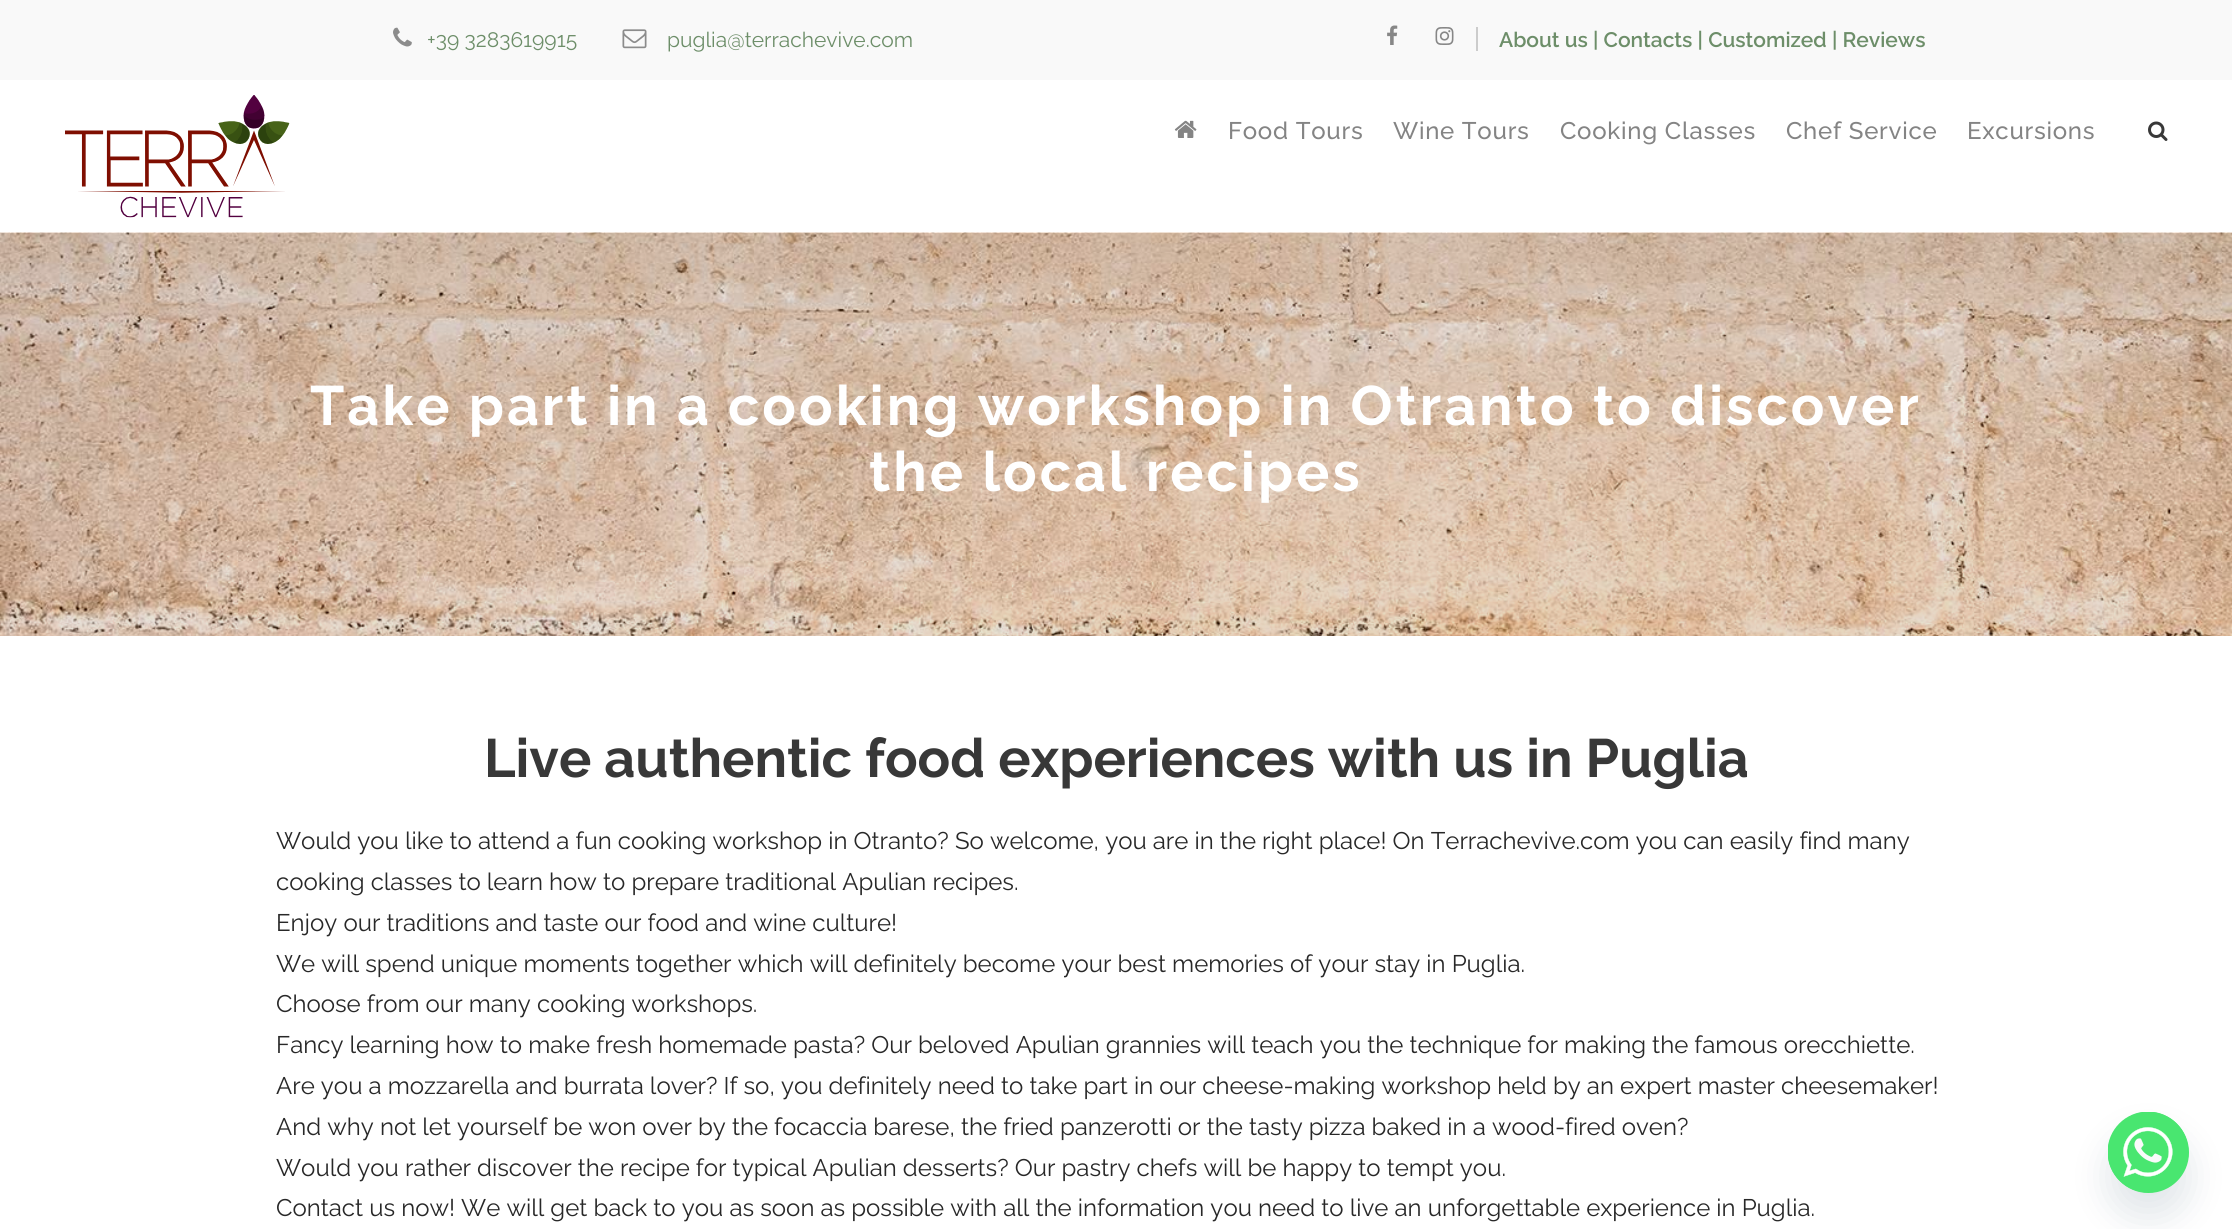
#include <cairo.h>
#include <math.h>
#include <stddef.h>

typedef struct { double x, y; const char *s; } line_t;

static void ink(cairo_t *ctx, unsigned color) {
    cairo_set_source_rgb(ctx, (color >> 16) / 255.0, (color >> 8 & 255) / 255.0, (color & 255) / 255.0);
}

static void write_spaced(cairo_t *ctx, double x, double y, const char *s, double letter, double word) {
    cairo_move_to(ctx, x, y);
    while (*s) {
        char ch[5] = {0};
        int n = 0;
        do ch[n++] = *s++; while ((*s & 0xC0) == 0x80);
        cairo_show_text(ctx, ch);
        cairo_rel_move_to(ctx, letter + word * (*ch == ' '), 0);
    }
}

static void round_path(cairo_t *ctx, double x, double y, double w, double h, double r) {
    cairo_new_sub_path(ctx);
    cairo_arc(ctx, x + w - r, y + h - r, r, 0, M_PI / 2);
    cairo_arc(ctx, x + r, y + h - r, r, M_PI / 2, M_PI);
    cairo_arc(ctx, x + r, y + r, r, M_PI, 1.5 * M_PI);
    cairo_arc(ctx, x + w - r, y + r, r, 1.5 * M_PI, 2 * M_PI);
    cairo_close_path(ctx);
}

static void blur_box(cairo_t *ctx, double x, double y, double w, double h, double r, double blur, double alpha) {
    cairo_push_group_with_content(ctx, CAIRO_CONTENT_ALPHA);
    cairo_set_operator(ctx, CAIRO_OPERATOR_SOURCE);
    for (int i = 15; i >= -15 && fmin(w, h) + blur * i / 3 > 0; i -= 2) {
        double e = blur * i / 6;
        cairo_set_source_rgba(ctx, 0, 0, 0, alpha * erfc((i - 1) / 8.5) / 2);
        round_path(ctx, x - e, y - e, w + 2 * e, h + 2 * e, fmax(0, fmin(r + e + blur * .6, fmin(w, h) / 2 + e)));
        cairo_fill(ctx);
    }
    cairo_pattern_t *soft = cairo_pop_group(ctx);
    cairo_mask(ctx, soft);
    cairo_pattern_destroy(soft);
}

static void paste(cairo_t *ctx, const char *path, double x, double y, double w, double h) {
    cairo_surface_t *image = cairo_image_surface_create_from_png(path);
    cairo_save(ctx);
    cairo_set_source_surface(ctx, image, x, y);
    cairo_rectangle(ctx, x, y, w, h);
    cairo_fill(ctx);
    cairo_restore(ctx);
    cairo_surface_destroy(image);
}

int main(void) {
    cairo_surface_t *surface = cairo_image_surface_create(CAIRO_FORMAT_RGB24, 2232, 1229);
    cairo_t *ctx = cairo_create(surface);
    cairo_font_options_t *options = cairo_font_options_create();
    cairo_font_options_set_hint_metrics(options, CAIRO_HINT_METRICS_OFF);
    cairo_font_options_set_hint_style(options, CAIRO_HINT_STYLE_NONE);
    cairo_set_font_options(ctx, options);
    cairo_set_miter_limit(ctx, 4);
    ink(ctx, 0xFFFFFF);
    cairo_paint(ctx);
    ink(ctx, 0xF9F9F9);
    cairo_rectangle(ctx, 0, 0, 2232, 80);
    cairo_fill(ctx);
    paste(ctx, "media/1.png", 393, 27, 19, 20);
    cairo_select_font_face(ctx, "Raleway Thin", CAIRO_FONT_SLANT_NORMAL, CAIRO_FONT_WEIGHT_NORMAL);
    cairo_set_font_size(ctx, 21);
    ink(ctx, 0x6D8E69);
    cairo_move_to(ctx, 427, 47);
    cairo_show_text(ctx, "+39 3283619915");
    paste(ctx, "media/2.png", 622, 29, 25, 20);
    cairo_move_to(ctx, 667, 47);
    cairo_show_text(ctx, "puglia@terrachevive.com");
    paste(ctx, "media/3.png", 1387, 25, 11, 20);
    paste(ctx, "media/4.png", 1435, 27, 19, 18);
    cairo_select_font_face(ctx, "Raleway SemiBold", CAIRO_FONT_SLANT_NORMAL, CAIRO_FONT_WEIGHT_NORMAL);
    cairo_move_to(ctx, 1499, 47);
    cairo_show_text(ctx, "About us | Contacts | Customized | Reviews");
    ink(ctx, 0xCCCCCC);
    cairo_rectangle(ctx, 1476, 27, 2, 24);
    cairo_fill(ctx);
    paste(ctx, "media/5.png", 65, 95, 225, 123);
    paste(ctx, "media/6.png", 1174, 120, 23, 18);
    cairo_select_font_face(ctx, "Raleway Medium", CAIRO_FONT_SLANT_NORMAL, CAIRO_FONT_WEIGHT_NORMAL);
    cairo_set_font_size(ctx, 24);
    ink(ctx, 0x848484);
    {
        static const line_t items[] = {
            {1228, 139, "Food Tours"},
            {1393, 139, "Wine Tours"},
            {1560, 139, "Cooking Classes"},
            {1786, 139, "Chef Service"},
            {1967, 139, "Excursions"},
        };
        for (size_t i = 0; i < sizeof items / sizeof *items; i++) {
            write_spaced(ctx, items[i].x, items[i].y, items[i].s, 0.75, 0);
        }
    }
    paste(ctx, "media/7.png", 2148, 121, 20, 20);
    paste(ctx, "media/8.png", 0, 232, 2232, 404);
    cairo_select_font_face(ctx, "Raleway", CAIRO_FONT_SLANT_NORMAL, CAIRO_FONT_WEIGHT_BOLD);
    cairo_set_font_size(ctx, 55.5);
    ink(ctx, 0xFFFFFF);
    write_spaced(ctx, 310, 425, "Take part in a cooking workshop in Otranto to discover", 3, 0);
    write_spaced(ctx, 869, 491, "the local recipes", 3, 0);
    cairo_set_font_size(ctx, 54);
    ink(ctx, 0x383838);
    cairo_move_to(ctx, 484, 777);
    cairo_show_text(ctx, "Live authentic food experiences with us in Puglia");
    cairo_select_font_face(ctx, "Raleway Thin", CAIRO_FONT_SLANT_NORMAL, CAIRO_FONT_WEIGHT_NORMAL);
    cairo_set_font_size(ctx, 24);
    ink(ctx, 0x282828);
    {
        static const line_t items[] = {
            {276, 849, "Would you like to attend a fun cooking workshop in Otranto? So welcome, you are in the right place! On Terrachevive.com you can easily find many"},
            {276, 890, "cooking classes to learn how to prepare traditional Apulian recipes."},
            {276, 931, "Enjoy our traditions and taste our food and wine culture!"},
            {276, 972, "We will spend unique moments together which will definitely become your best memories of your stay in Puglia."},
            {276, 1012, "Choose from our many cooking workshops."},
            {276, 1053, "Fancy learning how to make fresh homemade pasta? Our beloved Apulian grannies will teach you the technique for making the famous orecchiette."},
            {276, 1094, "Are you a mozzarella and burrata lover? If so, you definitely need to take part in our cheese-making workshop held by an expert master cheesemaker!"},
            {276, 1135, "And why not let yourself be won over by the focaccia barese, the fried panzerotti or the tasty pizza baked in a wood-fired oven?"},
            {276, 1176, "Would you rather discover the recipe for typical Apulian desserts? Our pastry chefs will be happy to tempt you."},
            {276, 1216, "Contact us now! We will get back to you as soon as possible with all the information you need to live an unforgettable experience in Puglia."},
        };
        for (size_t i = 0; i < sizeof items / sizeof *items; i++) {
            cairo_move_to(ctx, items[i].x, items[i].y);
            cairo_show_text(ctx, items[i].s);
        }
    }
    ink(ctx, 0x49687E);
    blur_box(ctx, 2108, 1136, 81, 81, 40.5, 18, 0.16);
    ink(ctx, 0x49E670);
    cairo_arc(ctx, 2148.5, 1152.5, 40.5, 0, 2 * M_PI);
    cairo_fill(ctx);
    paste(ctx, "media/9.png", 2108, 1112, 81, 81);
    cairo_surface_write_to_png(surface, "image.png");
    cairo_font_options_destroy(options);
    cairo_destroy(ctx);
    cairo_surface_destroy(surface);
    return 0;
}
